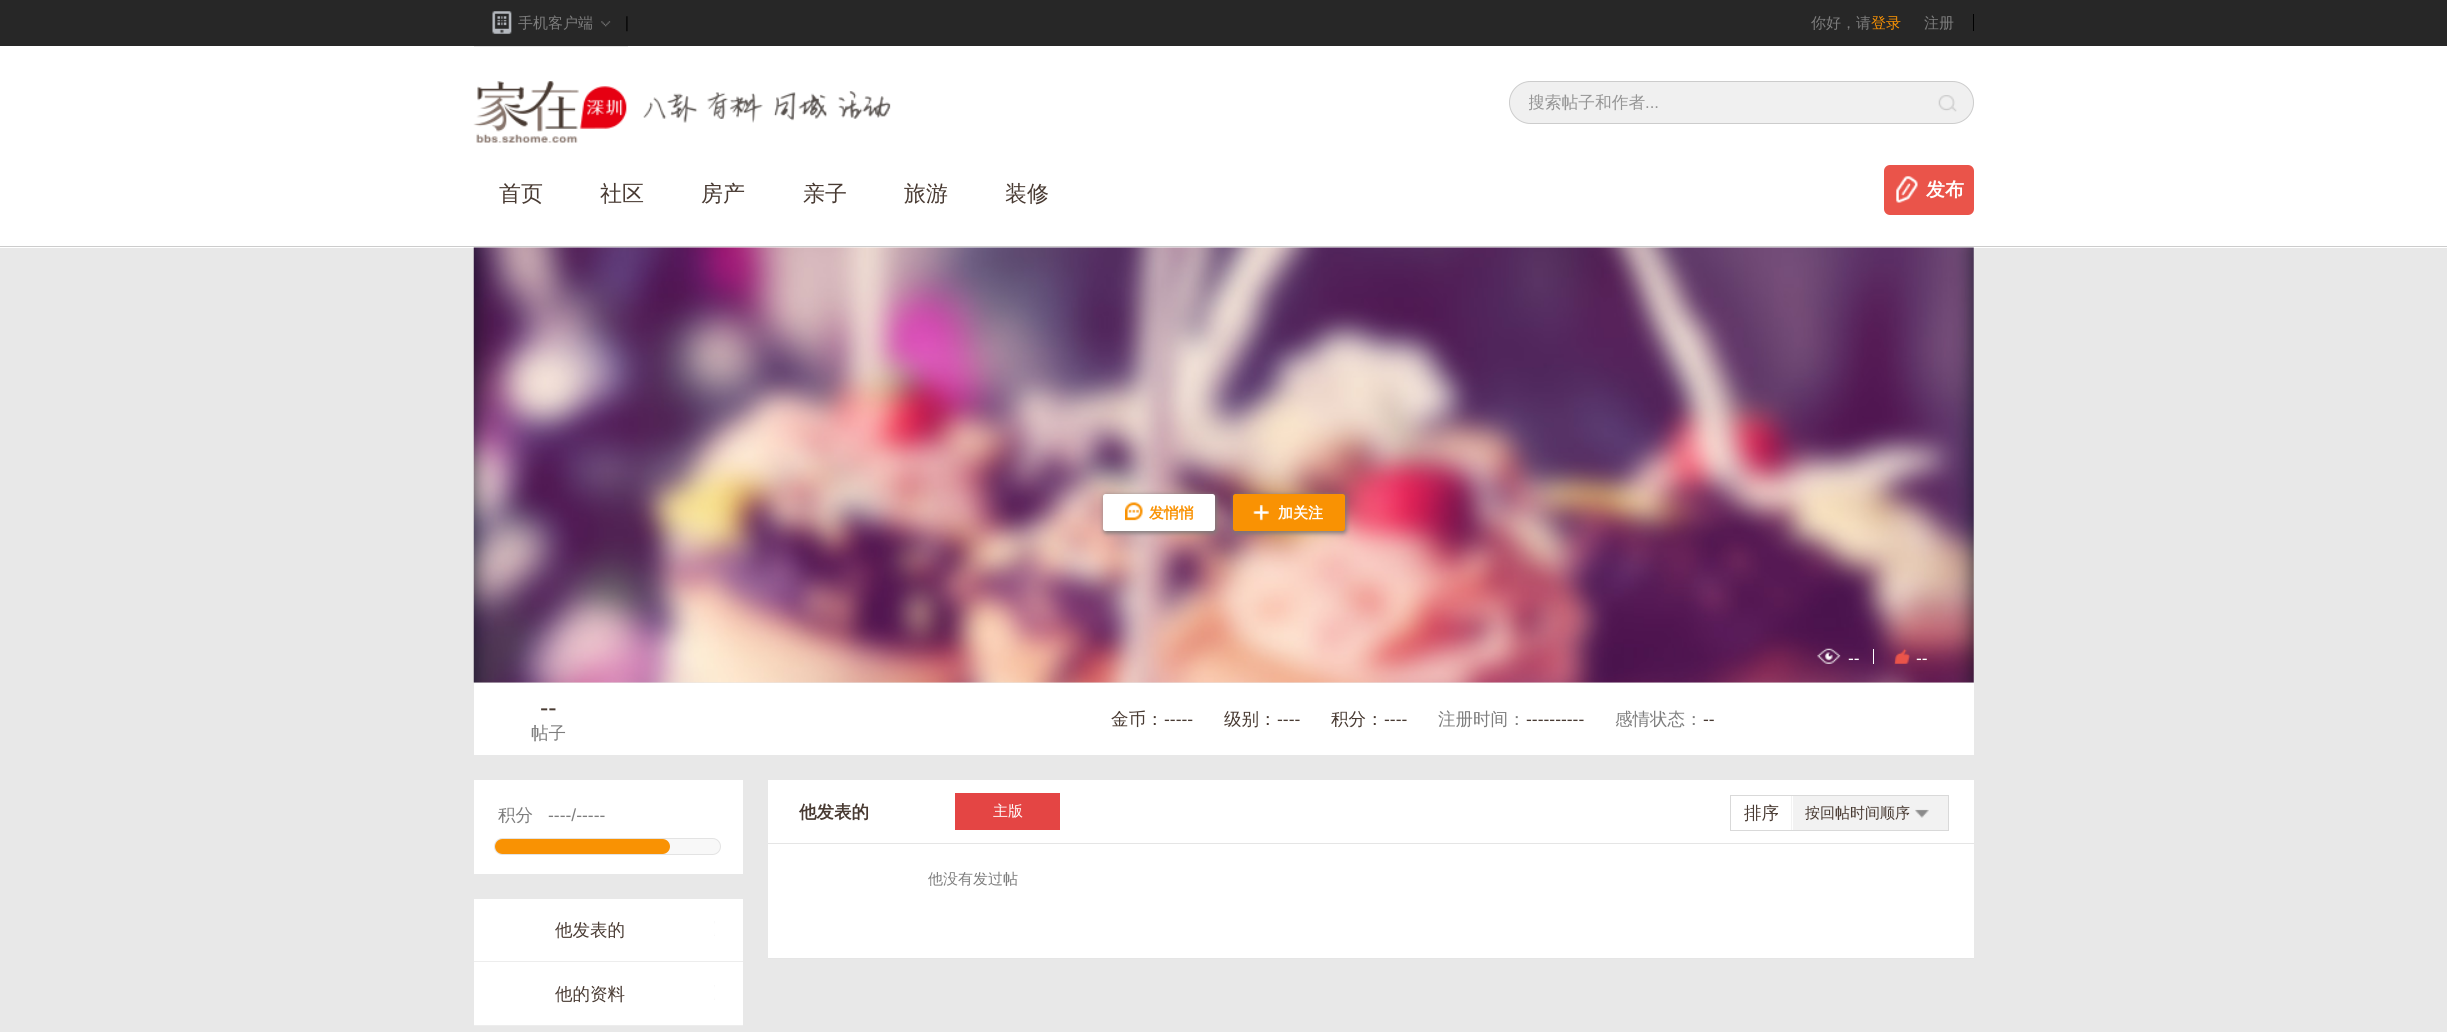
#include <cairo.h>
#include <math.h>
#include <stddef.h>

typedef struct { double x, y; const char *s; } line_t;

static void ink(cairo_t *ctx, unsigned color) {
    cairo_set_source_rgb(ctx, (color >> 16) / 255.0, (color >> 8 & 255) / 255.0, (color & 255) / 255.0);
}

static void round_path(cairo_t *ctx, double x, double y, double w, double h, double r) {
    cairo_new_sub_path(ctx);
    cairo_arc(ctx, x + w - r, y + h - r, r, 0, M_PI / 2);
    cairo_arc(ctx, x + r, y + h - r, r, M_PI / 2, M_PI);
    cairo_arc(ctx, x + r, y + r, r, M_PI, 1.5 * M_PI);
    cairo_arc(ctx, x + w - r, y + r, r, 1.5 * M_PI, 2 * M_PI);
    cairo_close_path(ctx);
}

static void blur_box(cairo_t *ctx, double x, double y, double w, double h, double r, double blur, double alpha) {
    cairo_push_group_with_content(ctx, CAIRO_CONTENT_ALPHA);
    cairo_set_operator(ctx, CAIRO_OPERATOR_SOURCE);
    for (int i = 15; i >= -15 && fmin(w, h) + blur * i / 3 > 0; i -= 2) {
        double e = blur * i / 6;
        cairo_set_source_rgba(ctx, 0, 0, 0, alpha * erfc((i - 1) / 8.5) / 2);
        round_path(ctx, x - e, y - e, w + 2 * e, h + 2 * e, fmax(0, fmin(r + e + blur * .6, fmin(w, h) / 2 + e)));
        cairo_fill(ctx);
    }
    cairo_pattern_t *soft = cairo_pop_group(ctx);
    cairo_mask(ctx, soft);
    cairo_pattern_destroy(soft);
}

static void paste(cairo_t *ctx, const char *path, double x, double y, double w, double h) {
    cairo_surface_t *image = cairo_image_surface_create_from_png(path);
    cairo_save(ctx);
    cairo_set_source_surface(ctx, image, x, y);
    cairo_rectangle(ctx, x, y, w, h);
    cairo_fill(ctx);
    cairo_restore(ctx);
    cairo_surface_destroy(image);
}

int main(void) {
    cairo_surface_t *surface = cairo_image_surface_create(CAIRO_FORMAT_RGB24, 2447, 1032);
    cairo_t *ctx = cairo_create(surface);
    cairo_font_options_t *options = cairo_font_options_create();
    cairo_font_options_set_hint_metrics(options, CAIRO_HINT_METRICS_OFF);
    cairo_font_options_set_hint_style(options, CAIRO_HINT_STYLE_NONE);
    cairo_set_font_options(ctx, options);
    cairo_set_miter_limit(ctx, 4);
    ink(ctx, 0xE8E8E8);
    cairo_paint(ctx);
    ink(ctx, 0x272727);
    cairo_rectangle(ctx, 0, 0, 2447, 46);
    cairo_fill(ctx);
    paste(ctx, "media/1.png", 601, 16, 27, 16);
    ink(ctx, 0xFFFFFF);
    cairo_rectangle(ctx, 0, 46, 2447, 202);
    cairo_fill(ctx);
    ink(ctx, 0xE7E7E7);
    cairo_rectangle(ctx, 474, 46, 154, 1);
    cairo_fill(ctx);
    paste(ctx, "media/2.png", 492, 11, 20, 23);
    cairo_select_font_face(ctx, "WenQuanYi Zen Hei Medium", CAIRO_FONT_SLANT_NORMAL, CAIRO_FONT_WEIGHT_NORMAL);
    cairo_set_font_size(ctx, 15);
    ink(ctx, 0x7D7D7D);
    cairo_move_to(ctx, 518, 28);
    cairo_show_text(ctx, "手机客户端");
    cairo_move_to(ctx, 1811, 28);
    cairo_show_text(ctx, "你好，请");
    ink(ctx, 0xF99203);
    cairo_move_to(ctx, 1871, 28);
    cairo_show_text(ctx, "登录");
    ink(ctx, 0x7D7D7D);
    cairo_move_to(ctx, 1924, 28);
    cairo_show_text(ctx, "注册");
    ink(ctx, 0x000000);
    cairo_rectangle(ctx, 1973, 14, 1, 17);
    cairo_fill(ctx);
    paste(ctx, "media/3.png", 473, 81, 418, 62);
    ink(ctx, 0xF0F0F0);
    round_path(ctx, 1509.5, 81.5, 464, 42, 21);
    cairo_fill_preserve(ctx);
    ink(ctx, 0xCCCCCC);
    cairo_set_line_width(ctx, 1);
    cairo_stroke(ctx);
    cairo_save(ctx);
    cairo_rectangle(ctx, 1529, 91, 396, 23);
    cairo_clip(ctx);
    cairo_set_font_size(ctx, 16.75);
    ink(ctx, 0x959595);
    cairo_move_to(ctx, 1528, 108);
    cairo_show_text(ctx, "搜索帖子和作者");
    cairo_restore(ctx);
    cairo_select_font_face(ctx, "Liberation Sans", CAIRO_FONT_SLANT_NORMAL, CAIRO_FONT_WEIGHT_NORMAL);
    cairo_set_font_size(ctx, 16.75);
    ink(ctx, 0x959595);
    cairo_move_to(ctx, 1645, 108);
    cairo_show_text(ctx, "...");
    paste(ctx, "media/4.png", 1938, 95, 19, 17);
    ink(ctx, 0xCCCCCC);
    cairo_rectangle(ctx, 0, 246, 2447, 1);
    cairo_fill(ctx);
    cairo_select_font_face(ctx, "WenQuanYi Zen Hei Medium", CAIRO_FONT_SLANT_NORMAL, CAIRO_FONT_WEIGHT_NORMAL);
    cairo_set_font_size(ctx, 22);
    ink(ctx, 0x483A32);
    {
        static const line_t items[] = {
            {499, 201, "首页"},
            {600, 201, "社区"},
            {701, 201, "房产"},
            {803, 201, "亲子"},
            {904, 201, "旅游"},
            {1005, 201, "装修"},
        };
        for (size_t i = 0; i < sizeof items / sizeof *items; i++) {
            cairo_move_to(ctx, items[i].x, items[i].y);
            cairo_show_text(ctx, items[i].s);
        }
    }
    ink(ctx, 0xEA544A);
    round_path(ctx, 1884, 165, 90, 50, 6);
    cairo_fill(ctx);
    paste(ctx, "media/5.png", 1896, 176, 22, 27);
    cairo_select_font_face(ctx, "WenQuanYi Zen Hei", CAIRO_FONT_SLANT_NORMAL, CAIRO_FONT_WEIGHT_BOLD);
    cairo_set_font_size(ctx, 19);
    ink(ctx, 0xFFFFFF);
    cairo_move_to(ctx, 1926, 196);
    cairo_show_text(ctx, "发布");
    paste(ctx, "media/6.png", 473, 247, 1501, 436);
    ink(ctx, 0x777777);
    blur_box(ctx, 1104, 495, 112, 38, 2.5, 2.5, 1);
    ink(ctx, 0xFFFFFF);
    round_path(ctx, 1103, 494, 112, 37, 2.5);
    cairo_fill(ctx);
    paste(ctx, "media/7.png", 1125, 502, 18, 19);
    cairo_set_font_size(ctx, 15);
    ink(ctx, 0xF99203);
    cairo_move_to(ctx, 1149, 518);
    cairo_show_text(ctx, "发悄悄");
    ink(ctx, 0x777777);
    blur_box(ctx, 1234, 495, 112, 38, 2.5, 2.5, 1);
    ink(ctx, 0xF99203);
    round_path(ctx, 1233, 494, 112, 37, 2.5);
    cairo_fill(ctx);
    paste(ctx, "media/8.png", 1253, 505, 16, 16);
    ink(ctx, 0xFFFFFF);
    cairo_move_to(ctx, 1278, 518);
    cairo_show_text(ctx, "加关注");
    paste(ctx, "media/9.png", 1817, 648, 24, 16);
    cairo_select_font_face(ctx, "Liberation Sans", CAIRO_FONT_SLANT_NORMAL, CAIRO_FONT_WEIGHT_NORMAL);
    cairo_set_font_size(ctx, 17.5);
    cairo_move_to(ctx, 1848, 664);
    cairo_show_text(ctx, "--");
    cairo_rectangle(ctx, 1873, 649, 1, 15);
    cairo_fill(ctx);
    paste(ctx, "media/10.png", 1894, 648, 16, 16);
    cairo_move_to(ctx, 1916, 664);
    cairo_show_text(ctx, "--");
    cairo_rectangle(ctx, 474, 683, 1500, 72);
    cairo_fill(ctx);
    cairo_set_font_size(ctx, 25);
    ink(ctx, 0x483A32);
    cairo_move_to(ctx, 540, 716);
    cairo_show_text(ctx, "--");
    cairo_select_font_face(ctx, "WenQuanYi Zen Hei Medium", CAIRO_FONT_SLANT_NORMAL, CAIRO_FONT_WEIGHT_NORMAL);
    cairo_set_font_size(ctx, 17.5);
    ink(ctx, 0x7D7D7D);
    cairo_move_to(ctx, 531, 739);
    cairo_show_text(ctx, "帖子");
    ink(ctx, 0x483A32);
    cairo_move_to(ctx, 1111, 725);
    cairo_show_text(ctx, "金币：");
    cairo_select_font_face(ctx, "Liberation Sans", CAIRO_FONT_SLANT_NORMAL, CAIRO_FONT_WEIGHT_NORMAL);
    cairo_move_to(ctx, 1164, 725);
    cairo_show_text(ctx, "-----");
    cairo_select_font_face(ctx, "WenQuanYi Zen Hei Medium", CAIRO_FONT_SLANT_NORMAL, CAIRO_FONT_WEIGHT_NORMAL);
    cairo_move_to(ctx, 1224, 725);
    cairo_show_text(ctx, "级别：");
    cairo_select_font_face(ctx, "Liberation Sans", CAIRO_FONT_SLANT_NORMAL, CAIRO_FONT_WEIGHT_NORMAL);
    cairo_move_to(ctx, 1277, 725);
    cairo_show_text(ctx, "----");
    cairo_select_font_face(ctx, "WenQuanYi Zen Hei Medium", CAIRO_FONT_SLANT_NORMAL, CAIRO_FONT_WEIGHT_NORMAL);
    cairo_move_to(ctx, 1331, 725);
    cairo_show_text(ctx, "积分：");
    cairo_select_font_face(ctx, "Liberation Sans", CAIRO_FONT_SLANT_NORMAL, CAIRO_FONT_WEIGHT_NORMAL);
    cairo_move_to(ctx, 1384, 725);
    cairo_show_text(ctx, "----");
    cairo_select_font_face(ctx, "WenQuanYi Zen Hei Medium", CAIRO_FONT_SLANT_NORMAL, CAIRO_FONT_WEIGHT_NORMAL);
    ink(ctx, 0x7D7D7D);
    cairo_move_to(ctx, 1438, 725);
    cairo_show_text(ctx, "注册时间：");
    cairo_select_font_face(ctx, "Liberation Sans", CAIRO_FONT_SLANT_NORMAL, CAIRO_FONT_WEIGHT_NORMAL);
    ink(ctx, 0x483A32);
    cairo_move_to(ctx, 1526, 725);
    cairo_show_text(ctx, "----------");
    cairo_select_font_face(ctx, "WenQuanYi Zen Hei Medium", CAIRO_FONT_SLANT_NORMAL, CAIRO_FONT_WEIGHT_NORMAL);
    ink(ctx, 0x7D7D7D);
    cairo_move_to(ctx, 1615, 725);
    cairo_show_text(ctx, "感情状态：");
    cairo_select_font_face(ctx, "Liberation Sans", CAIRO_FONT_SLANT_NORMAL, CAIRO_FONT_WEIGHT_NORMAL);
    ink(ctx, 0x483A32);
    cairo_move_to(ctx, 1703, 725);
    cairo_show_text(ctx, "--");
    ink(ctx, 0xFFFFFF);
    cairo_rectangle(ctx, 474, 780, 269, 94);
    cairo_fill(ctx);
    cairo_select_font_face(ctx, "WenQuanYi Zen Hei Medium", CAIRO_FONT_SLANT_NORMAL, CAIRO_FONT_WEIGHT_NORMAL);
    ink(ctx, 0x7D7D7D);
    cairo_move_to(ctx, 498, 821);
    cairo_show_text(ctx, "积分");
    cairo_select_font_face(ctx, "Liberation Sans", CAIRO_FONT_SLANT_NORMAL, CAIRO_FONT_WEIGHT_NORMAL);
    cairo_move_to(ctx, 548, 821);
    cairo_show_text(ctx, "----/-----");
    ink(ctx, 0xF8F8F8);
    round_path(ctx, 494.5, 838.5, 226, 16, 8);
    cairo_fill_preserve(ctx);
    ink(ctx, 0xE3E3E3);
    cairo_stroke(ctx);
    ink(ctx, 0xF99203);
    round_path(ctx, 495, 839, 175, 15, 7.5);
    cairo_fill(ctx);
    ink(ctx, 0xFFFFFF);
    cairo_rectangle(ctx, 474, 899, 269, 126);
    cairo_fill(ctx);
    ink(ctx, 0xEDEDED);
    cairo_rectangle(ctx, 474, 961, 269, 1);
    cairo_fill(ctx);
    cairo_select_font_face(ctx, "WenQuanYi Zen Hei Medium", CAIRO_FONT_SLANT_NORMAL, CAIRO_FONT_WEIGHT_NORMAL);
    ink(ctx, 0x483A32);
    cairo_move_to(ctx, 555, 936);
    cairo_show_text(ctx, "他发表的");
    paste(ctx, "media/11.png", 714, 921, 1, 15);
    ink(ctx, 0xEDEDED);
    cairo_rectangle(ctx, 474, 1025, 269, 1);
    cairo_fill(ctx);
    ink(ctx, 0x483A32);
    cairo_move_to(ctx, 555, 1000);
    cairo_show_text(ctx, "他的资料");
    paste(ctx, "media/12.png", 714, 985, 1, 15);
    ink(ctx, 0xFFFFFF);
    cairo_rectangle(ctx, 768, 780, 1206, 178);
    cairo_fill(ctx);
    ink(ctx, 0xE5E5E5);
    cairo_rectangle(ctx, 768, 843, 1206, 1);
    cairo_fill(ctx);
    cairo_select_font_face(ctx, "WenQuanYi Zen Hei", CAIRO_FONT_SLANT_NORMAL, CAIRO_FONT_WEIGHT_BOLD);
    ink(ctx, 0x483A32);
    cairo_move_to(ctx, 799, 818);
    cairo_show_text(ctx, "他发表的");
    ink(ctx, 0xE44544);
    cairo_rectangle(ctx, 955, 793, 105, 37);
    cairo_fill(ctx);
    cairo_select_font_face(ctx, "WenQuanYi Zen Hei Medium", CAIRO_FONT_SLANT_NORMAL, CAIRO_FONT_WEIGHT_NORMAL);
    cairo_set_font_size(ctx, 15);
    ink(ctx, 0xFFFFFF);
    cairo_move_to(ctx, 993, 816);
    cairo_show_text(ctx, "主版");
    cairo_rectangle(ctx, 1730.5, 795.5, 218, 35);
    ink(ctx, 0xD9D9D9);
    cairo_stroke(ctx);
    ink(ctx, 0xF2F2F2);
    cairo_rectangle(ctx, 1791, 796, 1, 34);
    cairo_fill(ctx);
    cairo_set_font_size(ctx, 17.5);
    ink(ctx, 0x483A32);
    cairo_move_to(ctx, 1744, 819);
    cairo_show_text(ctx, "排序");
    ink(ctx, 0xF2F2F2);
    cairo_rectangle(ctx, 1793, 796, 155, 34);
    cairo_fill(ctx);
    cairo_set_font_size(ctx, 15);
    ink(ctx, 0x483A32);
    cairo_move_to(ctx, 1805, 818);
    cairo_show_text(ctx, "按回帖时间顺序");
    paste(ctx, "media/13.png", 1915, 809, 14, 9);
    ink(ctx, 0xE5E5E5);
    cairo_rectangle(ctx, 768, 958, 1206, 1);
    cairo_fill(ctx);
    ink(ctx, 0x7D7D7D);
    cairo_move_to(ctx, 928, 884);
    cairo_show_text(ctx, "他没有发过帖");
    cairo_surface_write_to_png(surface, "image.png");
    cairo_font_options_destroy(options);
    cairo_destroy(ctx);
    cairo_surface_destroy(surface);
    return 0;
}
